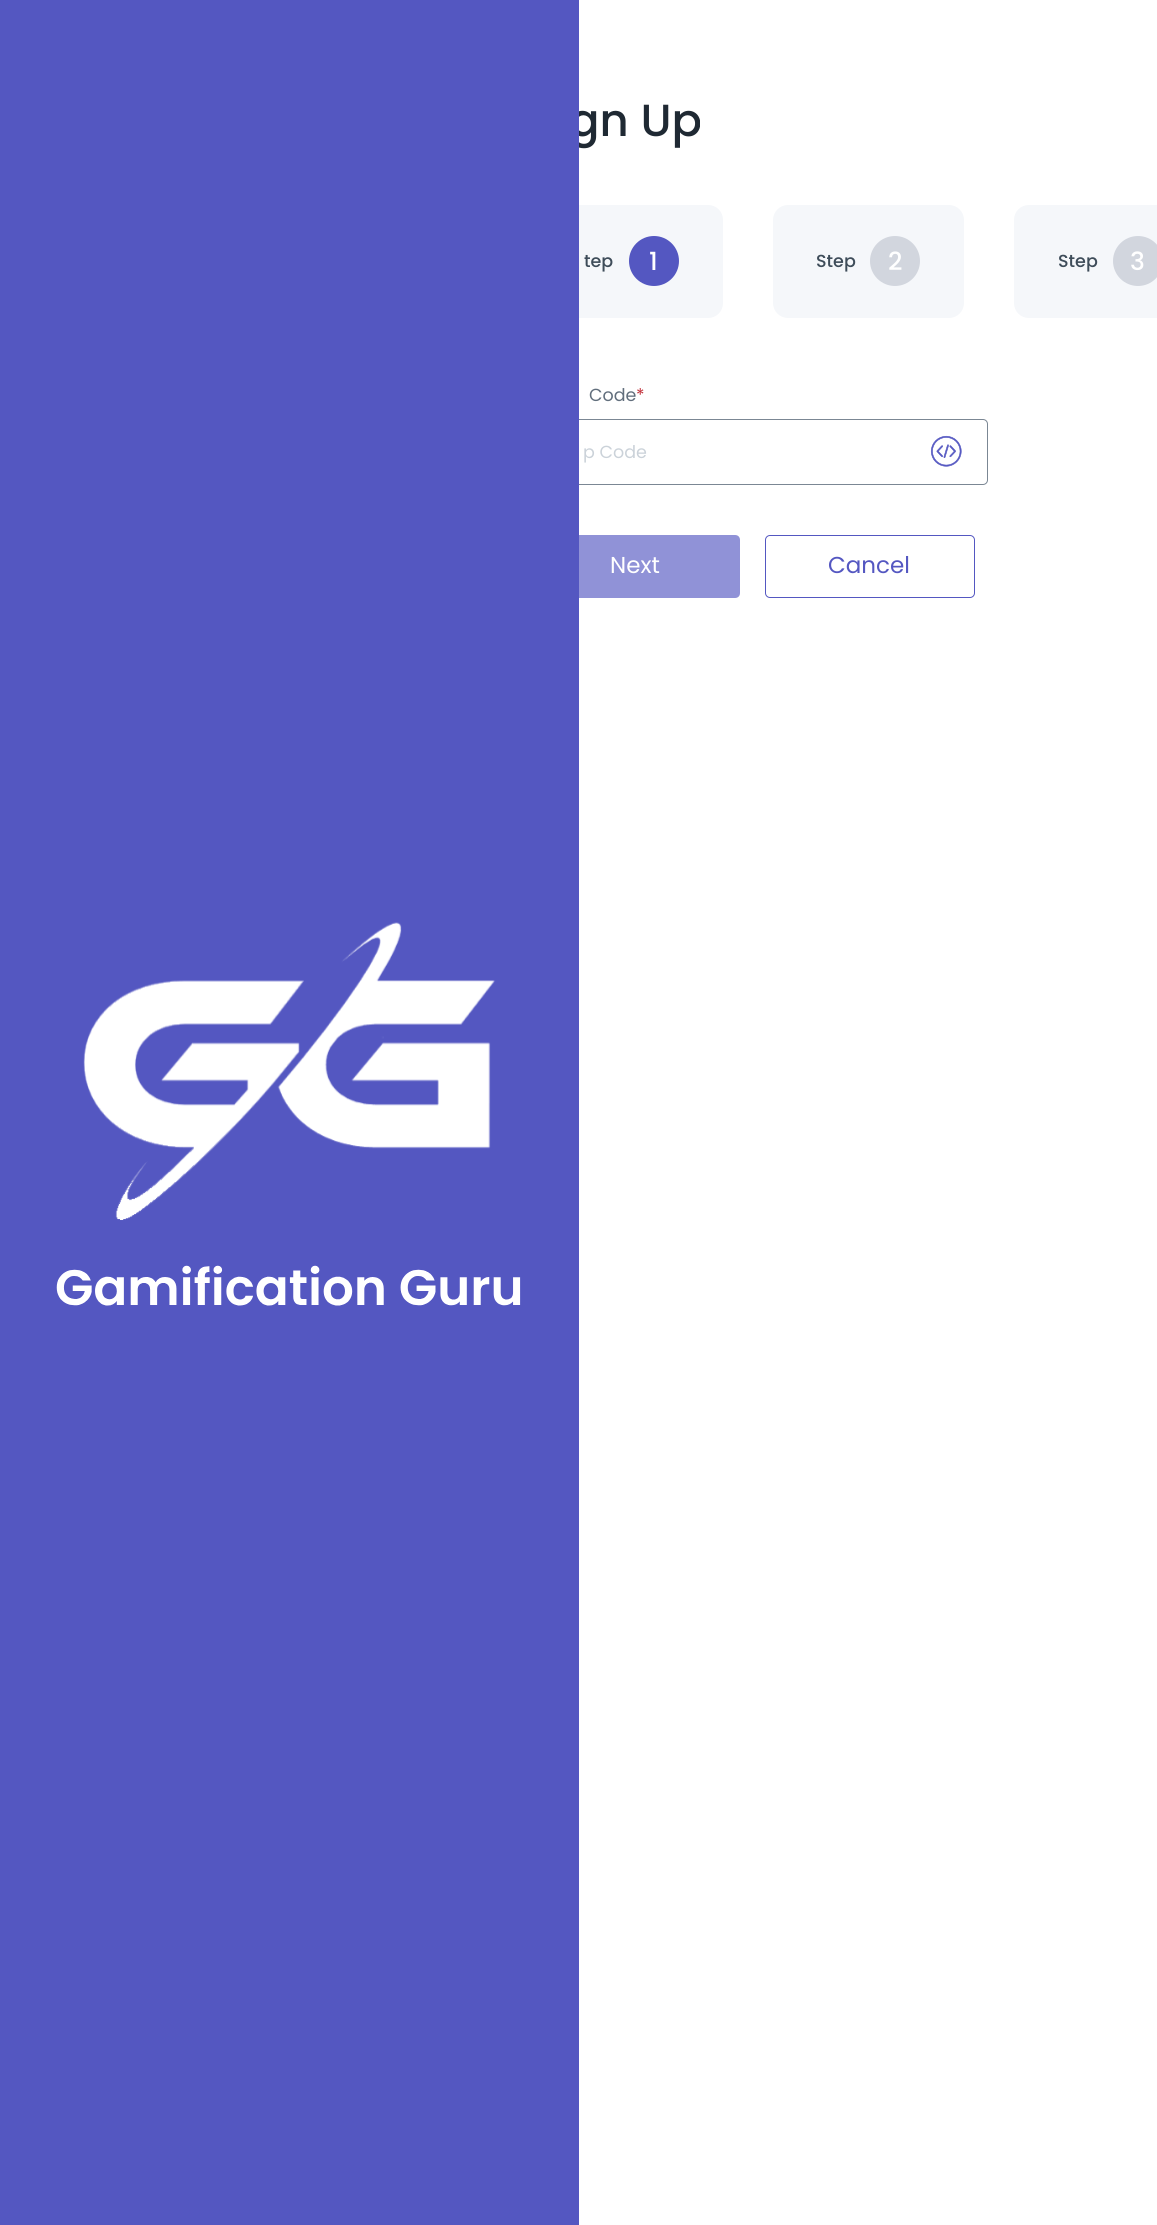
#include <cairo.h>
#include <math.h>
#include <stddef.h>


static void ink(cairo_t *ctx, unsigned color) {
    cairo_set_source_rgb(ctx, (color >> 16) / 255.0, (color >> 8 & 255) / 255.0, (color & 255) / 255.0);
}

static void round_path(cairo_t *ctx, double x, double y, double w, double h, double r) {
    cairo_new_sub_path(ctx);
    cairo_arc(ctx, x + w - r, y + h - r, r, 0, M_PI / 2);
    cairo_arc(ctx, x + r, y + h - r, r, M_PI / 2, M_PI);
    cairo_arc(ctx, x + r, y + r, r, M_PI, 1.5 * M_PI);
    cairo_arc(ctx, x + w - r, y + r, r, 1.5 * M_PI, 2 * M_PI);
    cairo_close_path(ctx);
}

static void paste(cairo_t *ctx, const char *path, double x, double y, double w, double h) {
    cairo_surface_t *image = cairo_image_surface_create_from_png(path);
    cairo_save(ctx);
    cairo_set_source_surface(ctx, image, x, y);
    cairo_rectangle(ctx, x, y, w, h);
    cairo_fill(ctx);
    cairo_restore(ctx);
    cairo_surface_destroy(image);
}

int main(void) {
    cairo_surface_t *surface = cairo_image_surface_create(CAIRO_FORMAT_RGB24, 1157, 2225);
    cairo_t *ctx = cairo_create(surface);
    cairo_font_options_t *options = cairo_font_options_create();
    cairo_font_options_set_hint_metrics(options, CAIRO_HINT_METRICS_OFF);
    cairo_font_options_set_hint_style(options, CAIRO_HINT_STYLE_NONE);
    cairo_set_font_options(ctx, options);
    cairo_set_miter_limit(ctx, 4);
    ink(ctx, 0x5457C1);
    cairo_paint(ctx);
    ink(ctx, 0xFFFFFF);
    cairo_rectangle(ctx, 579, 0, 578, 2225);
    cairo_fill(ctx);
    cairo_save(ctx);
    cairo_rectangle(ctx, 579, 0, 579, 2225);
    cairo_clip(ctx);
    cairo_select_font_face(ctx, "Poppins Medium", CAIRO_FONT_SLANT_NORMAL, CAIRO_FONT_WEIGHT_NORMAL);
    cairo_set_font_size(ctx, 45);
    ink(ctx, 0x1F2933);
    cairo_move_to(ctx, 569, 136);
    cairo_show_text(ctx, "gn Up");
    cairo_restore(ctx);
    ink(ctx, 0xF5F7FA);
    cairo_new_path(ctx);
    cairo_move_to(ctx, 579, 205);
    cairo_line_to(ctx, 708, 205);
    cairo_curve_to(ctx, 716.5, 205, 723, 211.5, 723, 220);
    cairo_line_to(ctx, 723, 303);
    cairo_curve_to(ctx, 723, 311.5, 716.5, 318, 708, 318);
    cairo_line_to(ctx, 579, 318);
    cairo_close_path(ctx);
    cairo_fill(ctx);
    cairo_select_font_face(ctx, "Poppins Medium", CAIRO_FONT_SLANT_NORMAL, CAIRO_FONT_WEIGHT_NORMAL);
    cairo_set_font_size(ctx, 17.5);
    ink(ctx, 0x3E4C59);
    cairo_move_to(ctx, 584, 267);
    cairo_show_text(ctx, "tep");
    ink(ctx, 0x5457C1);
    cairo_new_path(ctx);
    cairo_arc(ctx, 654, 261, 25, 0, 2 * M_PI);
    cairo_fill(ctx);
    cairo_set_font_size(ctx, 25);
    ink(ctx, 0xFFFFFF);
    cairo_move_to(ctx, 649, 270);
    cairo_show_text(ctx, "1");
    ink(ctx, 0xF5F7FA);
    round_path(ctx, 773, 205, 191, 113, 15);
    cairo_fill(ctx);
    cairo_set_font_size(ctx, 17.5);
    ink(ctx, 0x3E4C59);
    cairo_move_to(ctx, 816, 267);
    cairo_show_text(ctx, "Step");
    ink(ctx, 0xD2D6DE);
    cairo_new_path(ctx);
    cairo_arc(ctx, 895, 261, 25, 0, 2 * M_PI);
    cairo_fill(ctx);
    cairo_set_font_size(ctx, 25);
    ink(ctx, 0xFFFFFF);
    cairo_move_to(ctx, 888, 270);
    cairo_show_text(ctx, "2");
    ink(ctx, 0xF5F7FA);
    cairo_new_path(ctx);
    cairo_move_to(ctx, 1029, 205);
    cairo_line_to(ctx, 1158, 205);
    cairo_line_to(ctx, 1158, 318);
    cairo_line_to(ctx, 1029, 318);
    cairo_curve_to(ctx, 1020.5, 318, 1014, 311.5, 1014, 303);
    cairo_line_to(ctx, 1014, 220);
    cairo_curve_to(ctx, 1014, 211.5, 1020.5, 205, 1029, 205);
    cairo_close_path(ctx);
    cairo_fill(ctx);
    cairo_set_font_size(ctx, 17.5);
    ink(ctx, 0x3E4C59);
    cairo_move_to(ctx, 1058, 267);
    cairo_show_text(ctx, "Step");
    ink(ctx, 0xD2D6DE);
    cairo_new_path(ctx);
    cairo_arc(ctx, 1138, 261, 25, 0, 2 * M_PI);
    cairo_fill(ctx);
    cairo_set_font_size(ctx, 25);
    ink(ctx, 0xFFFFFF);
    cairo_move_to(ctx, 1130, 270);
    cairo_show_text(ctx, "3");
    cairo_select_font_face(ctx, "Poppins", CAIRO_FONT_SLANT_NORMAL, CAIRO_FONT_WEIGHT_NORMAL);
    cairo_set_font_size(ctx, 17.5);
    ink(ctx, 0x616E7C);
    cairo_move_to(ctx, 589, 401);
    cairo_show_text(ctx, "Code");
    ink(ctx, 0xC2313B);
    cairo_move_to(ctx, 636, 401);
    cairo_show_text(ctx, "*");
    cairo_save(ctx);
    cairo_rectangle(ctx, 579, 0, 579, 2225);
    cairo_clip(ctx);
    round_path(ctx, 530.5, 419.5, 457, 65, 4.5);
    ink(ctx, 0x7B8794);
    cairo_set_line_width(ctx, 1);
    cairo_stroke(ctx);
    cairo_restore(ctx);
    ink(ctx, 0xCBD2D9);
    cairo_move_to(ctx, 583, 458);
    cairo_show_text(ctx, "p Code");
    paste(ctx, "media/1.png", 930, 435, 32, 32);
    ink(ctx, 0x9092D7);
    cairo_new_path(ctx);
    cairo_move_to(ctx, 579, 535);
    cairo_line_to(ctx, 735, 535);
    cairo_curve_to(ctx, 738, 535, 740, 537, 740, 540);
    cairo_line_to(ctx, 740, 593);
    cairo_curve_to(ctx, 740, 596, 738, 598, 735, 598);
    cairo_line_to(ctx, 579, 598);
    cairo_close_path(ctx);
    cairo_fill(ctx);
    cairo_set_font_size(ctx, 23);
    ink(ctx, 0xFFFFFF);
    cairo_move_to(ctx, 610, 573);
    cairo_show_text(ctx, "Next");
    round_path(ctx, 765.5, 535.5, 209, 62, 4.5);
    ink(ctx, 0x5457C1);
    cairo_set_line_width(ctx, 1);
    cairo_stroke(ctx);
    cairo_move_to(ctx, 828, 573);
    cairo_show_text(ctx, "Cancel");
    paste(ctx, "media/2.png", 56, 922, 465, 384);
    cairo_surface_write_to_png(surface, "image.png");
    cairo_font_options_destroy(options);
    cairo_destroy(ctx);
    cairo_surface_destroy(surface);
    return 0;
}
